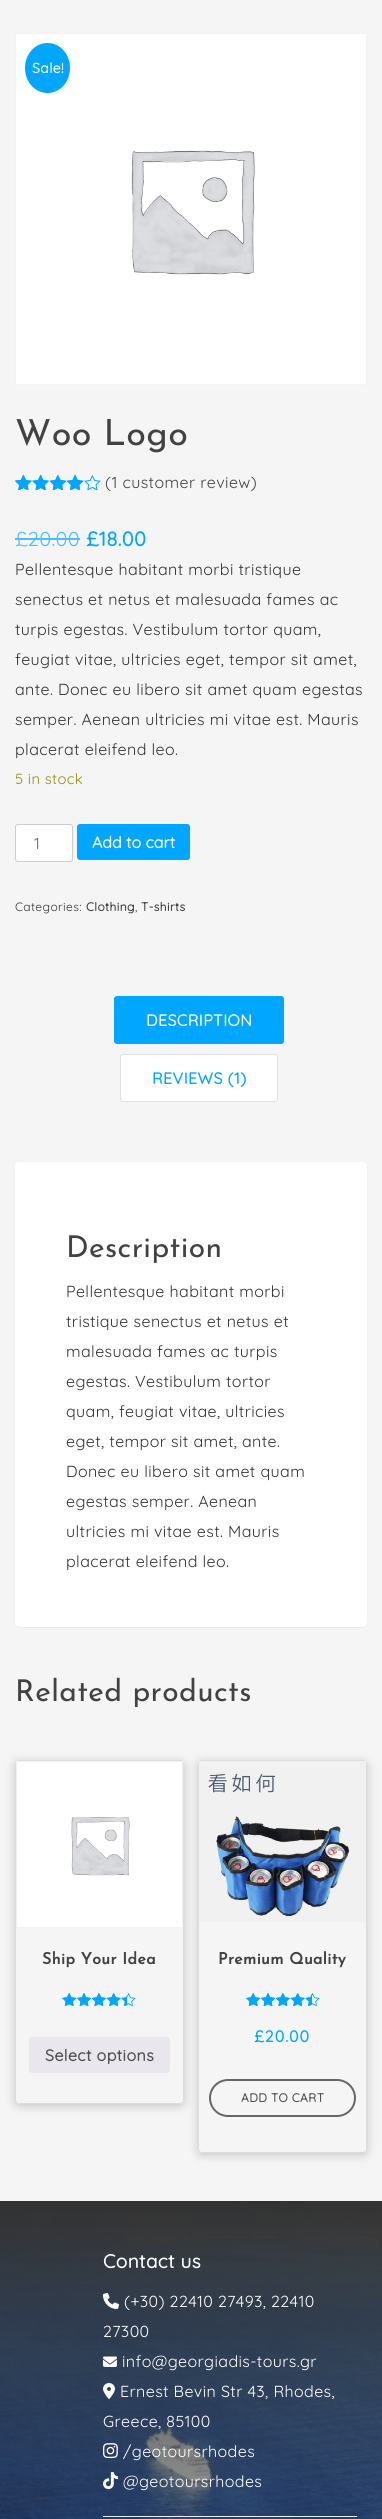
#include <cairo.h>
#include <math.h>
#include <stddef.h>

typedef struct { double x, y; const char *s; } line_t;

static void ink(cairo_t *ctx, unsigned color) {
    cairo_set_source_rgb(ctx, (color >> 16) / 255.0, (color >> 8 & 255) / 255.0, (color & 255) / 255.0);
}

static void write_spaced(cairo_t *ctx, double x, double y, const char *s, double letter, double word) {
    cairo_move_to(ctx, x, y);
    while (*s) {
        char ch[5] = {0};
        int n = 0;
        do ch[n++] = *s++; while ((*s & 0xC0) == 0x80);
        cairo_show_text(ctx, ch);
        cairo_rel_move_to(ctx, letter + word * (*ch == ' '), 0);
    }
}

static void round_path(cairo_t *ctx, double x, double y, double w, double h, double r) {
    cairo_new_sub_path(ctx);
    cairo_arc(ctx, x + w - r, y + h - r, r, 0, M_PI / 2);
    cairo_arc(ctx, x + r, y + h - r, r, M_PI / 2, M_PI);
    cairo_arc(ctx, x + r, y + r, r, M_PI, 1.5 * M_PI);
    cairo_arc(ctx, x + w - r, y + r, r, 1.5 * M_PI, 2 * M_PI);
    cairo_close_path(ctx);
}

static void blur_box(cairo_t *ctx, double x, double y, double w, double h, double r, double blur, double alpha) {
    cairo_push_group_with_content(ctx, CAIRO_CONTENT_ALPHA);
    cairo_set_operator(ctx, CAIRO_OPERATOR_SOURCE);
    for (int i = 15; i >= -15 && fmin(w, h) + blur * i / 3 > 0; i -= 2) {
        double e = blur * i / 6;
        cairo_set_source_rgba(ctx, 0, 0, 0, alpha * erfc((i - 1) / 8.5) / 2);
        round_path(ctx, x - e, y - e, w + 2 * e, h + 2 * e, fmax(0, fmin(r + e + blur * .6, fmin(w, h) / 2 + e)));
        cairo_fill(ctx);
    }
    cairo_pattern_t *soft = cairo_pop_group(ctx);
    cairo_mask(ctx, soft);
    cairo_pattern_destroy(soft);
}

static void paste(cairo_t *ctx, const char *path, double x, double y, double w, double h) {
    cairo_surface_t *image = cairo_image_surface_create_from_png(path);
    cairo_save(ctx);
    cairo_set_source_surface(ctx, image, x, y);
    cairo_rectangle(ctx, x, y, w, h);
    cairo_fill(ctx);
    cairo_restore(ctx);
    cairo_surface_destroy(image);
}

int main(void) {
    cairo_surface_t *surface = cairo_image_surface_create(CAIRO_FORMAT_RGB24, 382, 2519);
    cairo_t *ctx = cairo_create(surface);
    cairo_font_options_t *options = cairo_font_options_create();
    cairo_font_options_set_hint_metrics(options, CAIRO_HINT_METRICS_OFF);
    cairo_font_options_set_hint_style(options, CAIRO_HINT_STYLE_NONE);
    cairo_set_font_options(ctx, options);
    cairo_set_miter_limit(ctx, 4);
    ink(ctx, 0xF5F5F5);
    cairo_paint(ctx);
    cairo_rectangle(ctx, 15.5, 33.5, 351, 351);
    ink(ctx, 0xF2F2F2);
    cairo_set_line_width(ctx, 1);
    cairo_stroke(ctx);
    paste(ctx, "media/1.png", 16, 34, 350, 350);
    ink(ctx, 0x00A6FF);
    cairo_new_path(ctx);
    cairo_move_to(ctx, 47.5, 43);
    cairo_curve_to(ctx, 60, 43, 70, 54, 70, 68);
    cairo_curve_to(ctx, 70, 82, 60, 93, 47.5, 93);
    cairo_curve_to(ctx, 35, 93, 25, 82, 25, 68);
    cairo_curve_to(ctx, 25, 54, 35, 43, 47.5, 43);
    cairo_close_path(ctx);
    cairo_fill(ctx);
    cairo_select_font_face(ctx, "Quicksand", CAIRO_FONT_SLANT_NORMAL, CAIRO_FONT_WEIGHT_BOLD);
    cairo_set_font_size(ctx, 14);
    ink(ctx, 0xFFFFFF);
    write_spaced(ctx, 32, 73, "Sale!", 0.4, 0);
    cairo_select_font_face(ctx, "Josefin Sans Thin", CAIRO_FONT_SLANT_NORMAL, CAIRO_FONT_WEIGHT_NORMAL);
    cairo_set_font_size(ctx, 36);
    ink(ctx, 0x424242);
    write_spaced(ctx, 15, 445, "Woo Logo", 0.4, 0);
    paste(ctx, "media/2.png", 15, 474, 86, 16);
    paste(ctx, "media/3.png", 15, 474, 69, 16);
    paste(ctx, "media/4.png", 15, 475, 8, 15);
    cairo_select_font_face(ctx, "Quicksand Light", CAIRO_FONT_SLANT_NORMAL, CAIRO_FONT_WEIGHT_NORMAL);
    cairo_set_font_size(ctx, 16);
    write_spaced(ctx, 105, 488, "(1 customer review)", 0.4, 0);
    cairo_set_font_size(ctx, 20);
    ink(ctx, 0x4ABEFC);
    write_spaced(ctx, 15, 546, "£20.00", 0.4, 0);
    cairo_rectangle(ctx, 15, 538, 65, 2);
    cairo_fill(ctx);
    cairo_select_font_face(ctx, "Quicksand", CAIRO_FONT_SLANT_NORMAL, CAIRO_FONT_WEIGHT_BOLD);
    ink(ctx, 0x00A6FF);
    write_spaced(ctx, 86, 546, "£18.00", 0.4, 0);
    cairo_select_font_face(ctx, "Quicksand Light", CAIRO_FONT_SLANT_NORMAL, CAIRO_FONT_WEIGHT_NORMAL);
    cairo_set_font_size(ctx, 16);
    ink(ctx, 0x333333);
    {
        static const line_t items[] = {
            {15, 575, "Pellentesque habitant morbi tristique"},
            {15, 605, "senectus et netus et malesuada fames ac"},
            {15, 635, "turpis egestas. Vestibulum tortor quam,"},
            {15, 665, "feugiat vitae, ultricies eget, tempor sit amet,"},
            {15, 695, "ante. Donec eu libero sit amet quam egestas"},
            {15, 725, "semper. Aenean ultricies mi vitae est. Mauris"},
            {15, 755, "placerat eleifend leo."},
        };
        for (size_t i = 0; i < sizeof items / sizeof *items; i++) {
            write_spaced(ctx, items[i].x, items[i].y, items[i].s, 0.4, 0);
        }
    }
    cairo_set_font_size(ctx, 14.75);
    ink(ctx, 0x958E09);
    write_spaced(ctx, 15, 784, "5 in stock", 0.4, 0);
    ink(ctx, 0xFFFFFF);
    round_path(ctx, 15.5, 824.5, 57, 37, 2.5);
    cairo_fill_preserve(ctx);
    ink(ctx, 0xCCCCCC);
    cairo_stroke(ctx);
    cairo_set_font_size(ctx, 16);
    ink(ctx, 0x666666);
    cairo_move_to(ctx, 34, 849);
    cairo_show_text(ctx, "1");
    ink(ctx, 0x00A6FF);
    round_path(ctx, 77, 824, 113, 36, 3);
    cairo_fill(ctx);
    cairo_select_font_face(ctx, "Quicksand", CAIRO_FONT_SLANT_NORMAL, CAIRO_FONT_WEIGHT_BOLD);
    ink(ctx, 0xFFFFFF);
    cairo_move_to(ctx, 92, 848);
    cairo_show_text(ctx, "Add to cart");
    cairo_select_font_face(ctx, "Quicksand Light", CAIRO_FONT_SLANT_NORMAL, CAIRO_FONT_WEIGHT_NORMAL);
    cairo_set_font_size(ctx, 12);
    ink(ctx, 0x333333);
    write_spaced(ctx, 15, 911, "Categories:", 0.4, 0);
    cairo_select_font_face(ctx, "Quicksand", CAIRO_FONT_SLANT_NORMAL, CAIRO_FONT_WEIGHT_BOLD);
    ink(ctx, 0x424242);
    write_spaced(ctx, 86, 911, "Clothing", 0.4, 0);
    cairo_select_font_face(ctx, "Quicksand Light", CAIRO_FONT_SLANT_NORMAL, CAIRO_FONT_WEIGHT_NORMAL);
    ink(ctx, 0x333333);
    write_spaced(ctx, 135, 911, ",", 0.4, 0);
    cairo_select_font_face(ctx, "Quicksand", CAIRO_FONT_SLANT_NORMAL, CAIRO_FONT_WEIGHT_BOLD);
    ink(ctx, 0x424242);
    write_spaced(ctx, 141, 911, "T-shirts", 0.4, 0);
    ink(ctx, 0x00A6FF);
    round_path(ctx, 114.5, 996.5, 169, 47, 2.5);
    cairo_fill_preserve(ctx);
    cairo_stroke(ctx);
    cairo_set_font_size(ctx, 16);
    ink(ctx, 0xFFFFFF);
    write_spaced(ctx, 146, 1026, "DESCRIPTION", 0.4, 0);
    round_path(ctx, 120, 1054, 158, 48, 3);
    cairo_fill(ctx);
    round_path(ctx, 120.5, 1054.5, 157, 47, 2.5);
    cairo_set_source_rgba(ctx, 0.404, 0.404, 0.42, 0.2);
    cairo_stroke(ctx);
    ink(ctx, 0x00A6FF);
    write_spaced(ctx, 152, 1084, "REVIEWS (1)", 0.4, 0);
    ink(ctx, 0x000000);
    blur_box(ctx, 15, 1163, 352, 465, 4, 0.5, 0.05);
    ink(ctx, 0xFFFFFF);
    round_path(ctx, 15, 1162, 352, 465, 4);
    cairo_fill(ctx);
    cairo_select_font_face(ctx, "Josefin Sans Thin", CAIRO_FONT_SLANT_NORMAL, CAIRO_FONT_WEIGHT_NORMAL);
    cairo_set_font_size(ctx, 30);
    ink(ctx, 0x424242);
    write_spaced(ctx, 66, 1257, "Description", 0.4, 0);
    cairo_select_font_face(ctx, "Quicksand Light", CAIRO_FONT_SLANT_NORMAL, CAIRO_FONT_WEIGHT_NORMAL);
    cairo_set_font_size(ctx, 16);
    ink(ctx, 0x333333);
    {
        static const line_t items[] = {
            {66, 1297, "Pellentesque habitant morbi"},
            {66, 1327, "tristique senectus et netus et"},
            {66, 1357, "malesuada fames ac turpis"},
            {66, 1387, "egestas. Vestibulum tortor"},
            {66, 1417, "quam, feugiat vitae, ultricies"},
            {66, 1447, "eget, tempor sit amet, ante."},
            {66, 1477, "Donec eu libero sit amet quam"},
            {66, 1507, "egestas semper. Aenean"},
            {66, 1537, "ultricies mi vitae est. Mauris"},
            {66, 1567, "placerat eleifend leo."},
        };
        for (size_t i = 0; i < sizeof items / sizeof *items; i++) {
            write_spaced(ctx, items[i].x, items[i].y, items[i].s, 0.4, 0);
        }
    }
    cairo_select_font_face(ctx, "Josefin Sans Thin", CAIRO_FONT_SLANT_NORMAL, CAIRO_FONT_WEIGHT_NORMAL);
    cairo_set_font_size(ctx, 30);
    ink(ctx, 0x424242);
    write_spaced(ctx, 15, 1701, "Related products", 0.4, 0);
    cairo_save(ctx);
    cairo_set_fill_rule(ctx, CAIRO_FILL_RULE_EVEN_ODD);
    cairo_new_path(ctx);
    cairo_move_to(ctx, 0, 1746);
    cairo_line_to(ctx, 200, 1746);
    cairo_line_to(ctx, 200, 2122);
    cairo_line_to(ctx, 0, 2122);
    cairo_close_path(ctx);
    cairo_move_to(ctx, 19, 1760);
    cairo_line_to(ctx, 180, 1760);
    cairo_curve_to(ctx, 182, 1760, 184, 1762, 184, 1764);
    cairo_line_to(ctx, 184, 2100);
    cairo_curve_to(ctx, 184, 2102, 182, 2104, 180, 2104);
    cairo_line_to(ctx, 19, 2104);
    cairo_curve_to(ctx, 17, 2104, 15, 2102, 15, 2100);
    cairo_line_to(ctx, 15, 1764);
    cairo_curve_to(ctx, 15, 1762, 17, 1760, 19, 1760);
    cairo_close_path(ctx);
    cairo_clip(ctx);
    ink(ctx, 0x000000);
    blur_box(ctx, 15, 1762, 169, 344, 4, 5, 0.2);
    cairo_restore(ctx);
    round_path(ctx, 15.5, 1760.5, 168, 343, 3.5);
    ink(ctx, 0xDDDDDD);
    cairo_stroke(ctx);
    cairo_rectangle(ctx, 16.5, 1761.5, 166, 166);
    ink(ctx, 0xF2F2F2);
    cairo_stroke(ctx);
    paste(ctx, "media/5.png", 17, 1762, 165, 165);
    cairo_select_font_face(ctx, "Josefin Sans", CAIRO_FONT_SLANT_NORMAL, CAIRO_FONT_WEIGHT_BOLD);
    cairo_set_font_size(ctx, 16);
    ink(ctx, 0x424242);
    write_spaced(ctx, 42, 1964, "Ship Your Idea", 0.4, 0);
    paste(ctx, "media/6.png", 62, 1993, 74, 13);
    paste(ctx, "media/7.png", 62, 1993, 65, 13);
    ink(ctx, 0xE9E6ED);
    round_path(ctx, 29, 2037, 141, 36, 3);
    cairo_fill(ctx);
    cairo_select_font_face(ctx, "Quicksand", CAIRO_FONT_SLANT_NORMAL, CAIRO_FONT_WEIGHT_BOLD);
    ink(ctx, 0x515151);
    write_spaced(ctx, 45, 2061, "Select options", 0.4, 0);
    cairo_save(ctx);
    cairo_set_fill_rule(ctx, CAIRO_FILL_RULE_EVEN_ODD);
    cairo_new_path(ctx);
    cairo_move_to(ctx, 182, 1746);
    cairo_line_to(ctx, 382, 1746);
    cairo_line_to(ctx, 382, 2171);
    cairo_line_to(ctx, 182, 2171);
    cairo_close_path(ctx);
    cairo_move_to(ctx, 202, 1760);
    cairo_line_to(ctx, 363, 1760);
    cairo_curve_to(ctx, 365, 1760, 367, 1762, 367, 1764);
    cairo_line_to(ctx, 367, 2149);
    cairo_curve_to(ctx, 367, 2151, 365, 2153, 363, 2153);
    cairo_line_to(ctx, 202, 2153);
    cairo_curve_to(ctx, 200, 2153, 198, 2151, 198, 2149);
    cairo_line_to(ctx, 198, 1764);
    cairo_curve_to(ctx, 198, 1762, 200, 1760, 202, 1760);
    cairo_close_path(ctx);
    cairo_clip(ctx);
    ink(ctx, 0x000000);
    blur_box(ctx, 198, 1762, 169, 393, 4, 5, 0.2);
    cairo_restore(ctx);
    round_path(ctx, 198.5, 1760.5, 168, 392, 3.5);
    ink(ctx, 0xDDDDDD);
    cairo_stroke(ctx);
    paste(ctx, "media/8.png", 199, 1761, 167, 161);
    cairo_select_font_face(ctx, "Josefin Sans", CAIRO_FONT_SLANT_NORMAL, CAIRO_FONT_WEIGHT_BOLD);
    ink(ctx, 0x424242);
    write_spaced(ctx, 218, 1964, "Premium Quality", 0.4, 0);
    paste(ctx, "media/6.png", 246, 1993, 74, 13);
    paste(ctx, "media/9.png", 246, 1993, 66, 13);
    cairo_select_font_face(ctx, "Quicksand", CAIRO_FONT_SLANT_NORMAL, CAIRO_FONT_WEIGHT_BOLD);
    ink(ctx, 0x00A6FF);
    write_spaced(ctx, 254, 2042, "£20.00", 1, 0);
    round_path(ctx, 210, 2080, 145, 36, 18);
    ink(ctx, 0x67676B);
    cairo_set_line_width(ctx, 2);
    cairo_stroke(ctx);
    cairo_set_font_size(ctx, 12);
    ink(ctx, 0x515151);
    write_spaced(ctx, 241, 2102, "ADD TO CART", 0.4, 0);
    paste(ctx, "media/10.png", 0, 2201, 382, 318);
    cairo_set_font_size(ctx, 19);
    ink(ctx, 0xFFFFFF);
    write_spaced(ctx, 103, 2268, "Contact us", 0.4, 0);
    paste(ctx, "media/11.png", 103, 2293, 16, 16);
    cairo_select_font_face(ctx, "Quicksand Light", CAIRO_FONT_SLANT_NORMAL, CAIRO_FONT_WEIGHT_NORMAL);
    cairo_set_font_size(ctx, 16);
    write_spaced(ctx, 124, 2307, "(+30) 22410 27493, 22410", 0.4, 0);
    write_spaced(ctx, 103, 2337, "27300", 0.4, 0);
    paste(ctx, "media/12.png", 103, 2356, 14, 11);
    write_spaced(ctx, 122, 2367, "info@georgiadis-tours.gr", 0.4, 0);
    paste(ctx, "media/13.png", 103, 2383, 12, 16);
    write_spaced(ctx, 120, 2397, "Ernest Bevin Str 43, Rhodes,", 0.4, 0);
    write_spaced(ctx, 103, 2427, "Greece, 85100", 0.4, 0);
    paste(ctx, "media/14.png", 103, 2443, 15, 16);
    write_spaced(ctx, 123, 2457, "/geotoursrhodes", 0.4, 0);
    paste(ctx, "media/15.png", 103, 2472, 15, 18);
    write_spaced(ctx, 123, 2487, "@geotoursrhodes", 0.4, 0);
    ink(ctx, 0xEEEEEE);
    cairo_rectangle(ctx, 103, 2516, 254, 1);
    cairo_fill(ctx);
    cairo_surface_write_to_png(surface, "image.png");
    cairo_font_options_destroy(options);
    cairo_destroy(ctx);
    cairo_surface_destroy(surface);
    return 0;
}
